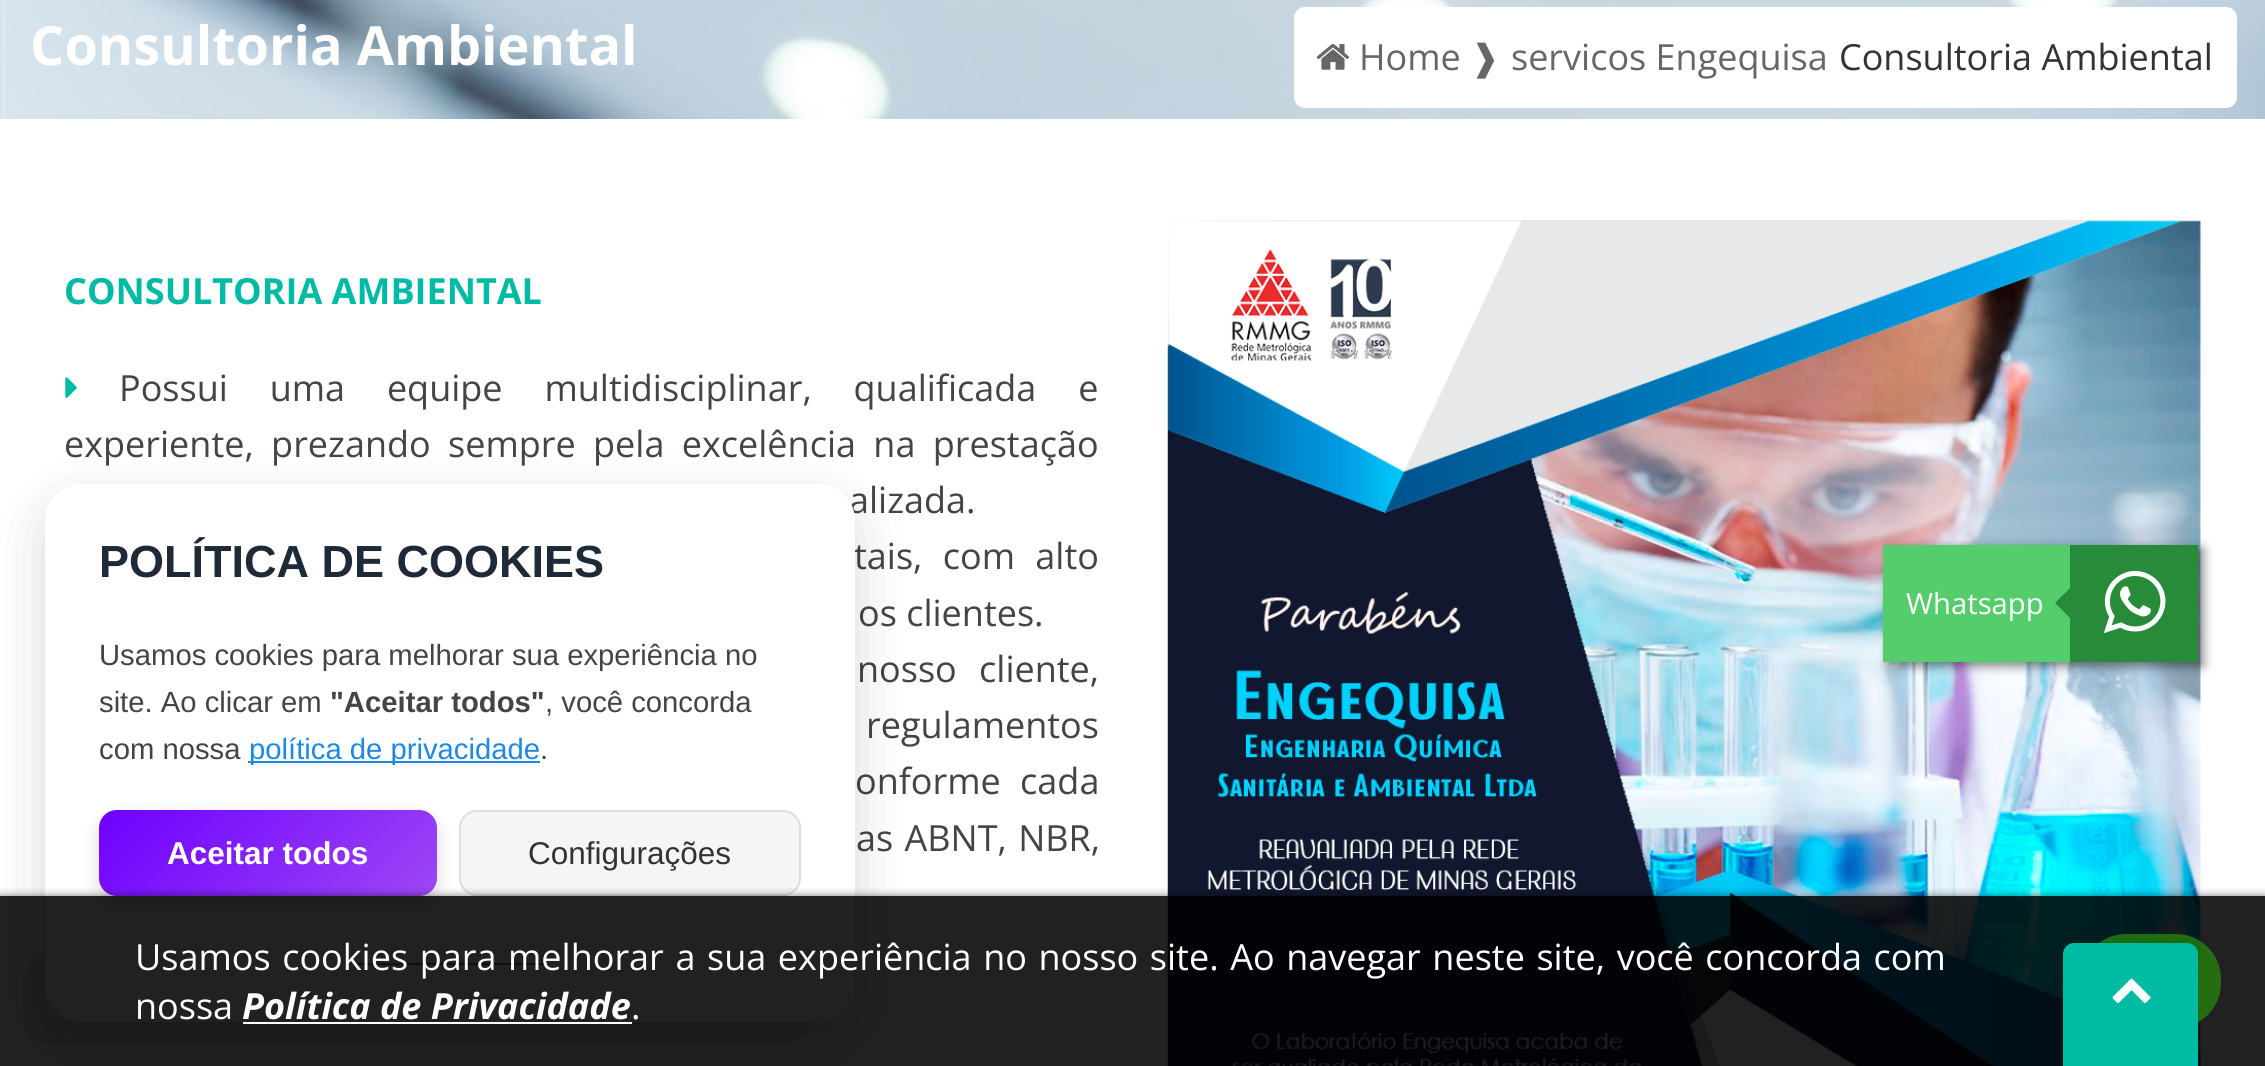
#include <cairo.h>
#include <math.h>
#include <stddef.h>


static void ink(cairo_t *ctx, unsigned color) {
    cairo_set_source_rgb(ctx, (color >> 16) / 255.0, (color >> 8 & 255) / 255.0, (color & 255) / 255.0);
}

static void write_spaced(cairo_t *ctx, double x, double y, const char *s, double letter, double word) {
    cairo_move_to(ctx, x, y);
    while (*s) {
        char ch[5] = {0};
        int n = 0;
        do ch[n++] = *s++; while ((*s & 0xC0) == 0x80);
        cairo_show_text(ctx, ch);
        cairo_rel_move_to(ctx, letter + word * (*ch == ' '), 0);
    }
}

static void round_path(cairo_t *ctx, double x, double y, double w, double h, double r) {
    cairo_new_sub_path(ctx);
    cairo_arc(ctx, x + w - r, y + h - r, r, 0, M_PI / 2);
    cairo_arc(ctx, x + r, y + h - r, r, M_PI / 2, M_PI);
    cairo_arc(ctx, x + r, y + r, r, M_PI, 1.5 * M_PI);
    cairo_arc(ctx, x + w - r, y + r, r, 1.5 * M_PI, 2 * M_PI);
    cairo_close_path(ctx);
}

static void blur_box(cairo_t *ctx, double x, double y, double w, double h, double r, double blur, double alpha) {
    cairo_push_group_with_content(ctx, CAIRO_CONTENT_ALPHA);
    cairo_set_operator(ctx, CAIRO_OPERATOR_SOURCE);
    for (int i = 15; i >= -15 && fmin(w, h) + blur * i / 3 > 0; i -= 2) {
        double e = blur * i / 6;
        cairo_set_source_rgba(ctx, 0, 0, 0, alpha * erfc((i - 1) / 8.5) / 2);
        round_path(ctx, x - e, y - e, w + 2 * e, h + 2 * e, fmax(0, fmin(r + e + blur * .6, fmin(w, h) / 2 + e)));
        cairo_fill(ctx);
    }
    cairo_pattern_t *soft = cairo_pop_group(ctx);
    cairo_mask(ctx, soft);
    cairo_pattern_destroy(soft);
}

static void paste(cairo_t *ctx, const char *path, double x, double y, double w, double h) {
    cairo_surface_t *image = cairo_image_surface_create_from_png(path);
    cairo_save(ctx);
    cairo_set_source_surface(ctx, image, x, y);
    cairo_rectangle(ctx, x, y, w, h);
    cairo_fill(ctx);
    cairo_restore(ctx);
    cairo_surface_destroy(image);
}

int main(void) {
    cairo_surface_t *surface = cairo_image_surface_create(CAIRO_FORMAT_RGB24, 2265, 1066);
    cairo_t *ctx = cairo_create(surface);
    cairo_font_options_t *options = cairo_font_options_create();
    cairo_font_options_set_hint_metrics(options, CAIRO_HINT_METRICS_OFF);
    cairo_font_options_set_hint_style(options, CAIRO_HINT_STYLE_NONE);
    cairo_set_font_options(ctx, options);
    cairo_set_miter_limit(ctx, 4);
    cairo_pattern_t *gradient;
    ink(ctx, 0xFFFFFF);
    cairo_paint(ctx);
    paste(ctx, "media/1.png", 0, 0, 2265, 119);
    cairo_select_font_face(ctx, "Open Sans", CAIRO_FONT_SLANT_NORMAL, CAIRO_FONT_WEIGHT_BOLD);
    cairo_set_font_size(ctx, 54);
    ink(ctx, 0xFFFFFF);
    cairo_move_to(ctx, 30, 65);
    cairo_show_text(ctx, "Consultoria Ambiental");
    round_path(ctx, 1294, 7, 943, 101, 11);
    cairo_fill(ctx);
    paste(ctx, "media/2.png", 1316, 44, 34, 26);
    cairo_select_font_face(ctx, "Open Sans", CAIRO_FONT_SLANT_NORMAL, CAIRO_FONT_WEIGHT_NORMAL);
    cairo_set_font_size(ctx, 36);
    ink(ctx, 0x666666);
    cairo_move_to(ctx, 1359, 70);
    cairo_show_text(ctx, "Home");
    cairo_select_font_face(ctx, "DejaVu Sans", CAIRO_FONT_SLANT_NORMAL, CAIRO_FONT_WEIGHT_NORMAL);
    cairo_move_to(ctx, 1470, 70);
    cairo_show_text(ctx, "❱");
    cairo_select_font_face(ctx, "Open Sans", CAIRO_FONT_SLANT_NORMAL, CAIRO_FONT_WEIGHT_NORMAL);
    cairo_move_to(ctx, 1511, 70);
    cairo_show_text(ctx, "servicos Engequisa");
    ink(ctx, 0x333333);
    cairo_move_to(ctx, 1839, 70);
    cairo_show_text(ctx, "Consultoria Ambiental");
    cairo_select_font_face(ctx, "Open Sans", CAIRO_FONT_SLANT_NORMAL, CAIRO_FONT_WEIGHT_BOLD);
    ink(ctx, 0x00BBA3);
    cairo_move_to(ctx, 64, 304);
    cairo_show_text(ctx, "CONSULTORIA AMBIENTAL");
    paste(ctx, "media/3.png", 65, 377, 12, 21);
    cairo_select_font_face(ctx, "Open Sans", CAIRO_FONT_SLANT_NORMAL, CAIRO_FONT_WEIGHT_NORMAL);
    ink(ctx, 0x444444);
    write_spaced(ctx, 119, 401, "Possui uma equipe multidisciplinar, qualificada e", 0, 32.5);
    write_spaced(ctx, 64, 457, "experiente, prezando sempre pela excelência na prestação", 0, 8);
    cairo_move_to(ctx, 849, 513);
    cairo_show_text(ctx, "alizada.");
    write_spaced(ctx, 854, 569, "tais, com alto", 0, 11);
    cairo_move_to(ctx, 858, 626);
    cairo_show_text(ctx, "os clientes.");
    write_spaced(ctx, 857, 682, "nosso cliente,", 0, 13);
    write_spaced(ctx, 866, 738, "regulamentos", 0, 23);
    write_spaced(ctx, 855, 794, "onforme cada", 0, 10);
    write_spaced(ctx, 856, 851, "as ABNT, NBR,", 0, 2);
    paste(ctx, "media/4.png", 1167, 220, 1034, 846);
    ink(ctx, 0xE5E5E5);
    round_path(ctx, 23, 954, 787, 90, 27);
    cairo_fill(ctx);
    ink(ctx, 0x000000);
    blur_box(ctx, 45, 502, 810, 538, 36, 27, 0.15);
    ink(ctx, 0xFFFFFF);
    round_path(ctx, 45, 484, 810, 538, 36);
    cairo_fill(ctx);
    cairo_select_font_face(ctx, "Liberation Sans", CAIRO_FONT_SLANT_NORMAL, CAIRO_FONT_WEIGHT_BOLD);
    cairo_set_font_size(ctx, 45);
    ink(ctx, 0x1E2A38);
    cairo_move_to(ctx, 99, 577);
    cairo_show_text(ctx, "POLÍTICA DE COOKIES");
    cairo_select_font_face(ctx, "Liberation Sans", CAIRO_FONT_SLANT_NORMAL, CAIRO_FONT_WEIGHT_NORMAL);
    cairo_set_font_size(ctx, 29.25);
    ink(ctx, 0x444444);
    cairo_move_to(ctx, 99, 665);
    cairo_show_text(ctx, "Usamos cookies para melhorar sua experiência no");
    cairo_move_to(ctx, 99, 712);
    cairo_show_text(ctx, "site. Ao clicar em");
    cairo_select_font_face(ctx, "Liberation Sans", CAIRO_FONT_SLANT_NORMAL, CAIRO_FONT_WEIGHT_BOLD);
    cairo_move_to(ctx, 330, 712);
    cairo_show_text(ctx, "\"Aceitar todos\"");
    cairo_select_font_face(ctx, "Liberation Sans", CAIRO_FONT_SLANT_NORMAL, CAIRO_FONT_WEIGHT_NORMAL);
    cairo_move_to(ctx, 545, 712);
    cairo_show_text(ctx, ", você concorda");
    cairo_move_to(ctx, 99, 759);
    cairo_show_text(ctx, "com nossa");
    ink(ctx, 0x1E88E5);
    cairo_rectangle(ctx, 248, 761, 292, 2);
    cairo_fill(ctx);
    cairo_move_to(ctx, 249, 759);
    cairo_show_text(ctx, "política de privacidade");
    ink(ctx, 0x444444);
    cairo_move_to(ctx, 540, 759);
    cairo_show_text(ctx, ".");
    ink(ctx, 0x000000);
    blur_box(ctx, 99, 817, 338, 85, 18, 9, 0.15);
    gradient = cairo_pattern_create_linear(162, 747, 374, 959);
    cairo_pattern_add_color_stop_rgba(gradient, 0, 0.431, 0, 1, 1);
    cairo_pattern_add_color_stop_rgba(gradient, 1, 0.616, 0.278, 0.961, 1);
    cairo_set_source(ctx, gradient);
    cairo_pattern_destroy(gradient);
    round_path(ctx, 99, 810, 338, 86, 18);
    cairo_fill(ctx);
    cairo_select_font_face(ctx, "Liberation Sans", CAIRO_FONT_SLANT_NORMAL, CAIRO_FONT_WEIGHT_BOLD);
    cairo_set_font_size(ctx, 31.5);
    ink(ctx, 0xFFFFFF);
    cairo_move_to(ctx, 167, 864);
    cairo_show_text(ctx, "Aceitar todos");
    ink(ctx, 0xF5F5F5);
    round_path(ctx, 460, 811, 340, 84, 17);
    cairo_fill_preserve(ctx);
    ink(ctx, 0xDDDDDD);
    cairo_stroke(ctx);
    cairo_select_font_face(ctx, "Liberation Sans", CAIRO_FONT_SLANT_NORMAL, CAIRO_FONT_WEIGHT_NORMAL);
    ink(ctx, 0x333333);
    cairo_move_to(ctx, 528, 864);
    cairo_show_text(ctx, "Configurações");
    ink(ctx, 0x1E88E5);
    cairo_rectangle(ctx, 356, 963, 189, 2);
    cairo_fill(ctx);
    ink(ctx, 0x000000);
    blur_box(ctx, 1888, 549, 315, 117, 0, 5.5, 0.5);
    ink(ctx, 0x55CD6C);
    cairo_rectangle(ctx, 1883, 545, 187, 117);
    cairo_fill(ctx);
    cairo_select_font_face(ctx, "Open Sans", CAIRO_FONT_SLANT_NORMAL, CAIRO_FONT_WEIGHT_NORMAL);
    cairo_set_font_size(ctx, 29.25);
    ink(ctx, 0xFFFFFF);
    cairo_move_to(ctx, 1906, 614);
    cairo_show_text(ctx, "Whatsapp");
    ink(ctx, 0x278B3A);
    cairo_new_path(ctx);
    cairo_move_to(ctx, 2087, 571);
    cairo_line_to(ctx, 2119, 603);
    cairo_line_to(ctx, 2087, 635);
    cairo_line_to(ctx, 2055, 603);
    cairo_close_path(ctx);
    cairo_fill(ctx);
    cairo_rectangle(ctx, 2070, 545, 128, 117);
    cairo_fill(ctx);
    paste(ctx, "media/5.png", 2103, 570, 63, 63);
    cairo_save(ctx);
    cairo_rectangle(ctx, 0, 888, 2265, 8);
    cairo_clip(ctx);
    ink(ctx, 0x000000);
    blur_box(ctx, 0, 896, 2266, 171, 0, 4.5, 0.5);
    cairo_restore(ctx);
    cairo_set_source_rgba(ctx, 0, 0, 0, 0.87);
    cairo_rectangle(ctx, 0, 896, 2265, 170);
    cairo_fill(ctx);
    cairo_set_font_size(ctx, 36);
    ink(ctx, 0xFFFFFF);
    write_spaced(ctx, 135, 970, "Usamos cookies para melhorar a sua experiência no nosso site. Ao navegar neste site, você concorda com", 0, 2.25);
    cairo_move_to(ctx, 135, 1019);
    cairo_show_text(ctx, "nossa");
    cairo_select_font_face(ctx, "Open Sans", CAIRO_FONT_SLANT_ITALIC, CAIRO_FONT_WEIGHT_BOLD);
    cairo_move_to(ctx, 242, 1019);
    cairo_show_text(ctx, "Política de Privacidade");
    cairo_rectangle(ctx, 243, 1022, 389, 2);
    cairo_fill(ctx);
    cairo_select_font_face(ctx, "Open Sans", CAIRO_FONT_SLANT_NORMAL, CAIRO_FONT_WEIGHT_NORMAL);
    cairo_move_to(ctx, 631, 1019);
    cairo_show_text(ctx, ".");
    cairo_set_source_rgba(ctx, 0.161, 0.569, 0.051, 0.68);
    round_path(ctx, 2081, 934, 140, 94, 45);
    cairo_fill(ctx);
    ink(ctx, 0x00BBA3);
    cairo_new_path(ctx);
    cairo_move_to(ctx, 2074, 943);
    cairo_line_to(ctx, 2187, 943);
    cairo_curve_to(ctx, 2193, 943, 2198, 948, 2198, 954);
    cairo_line_to(ctx, 2198, 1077);
    cairo_line_to(ctx, 2063, 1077);
    cairo_line_to(ctx, 2063, 954);
    cairo_curve_to(ctx, 2063, 948, 2068, 943, 2074, 943);
    cairo_close_path(ctx);
    cairo_fill(ctx);
    paste(ctx, "media/6.png", 2112, 978, 39, 25);
    cairo_surface_write_to_png(surface, "image.png");
    cairo_font_options_destroy(options);
    cairo_destroy(ctx);
    cairo_surface_destroy(surface);
    return 0;
}
